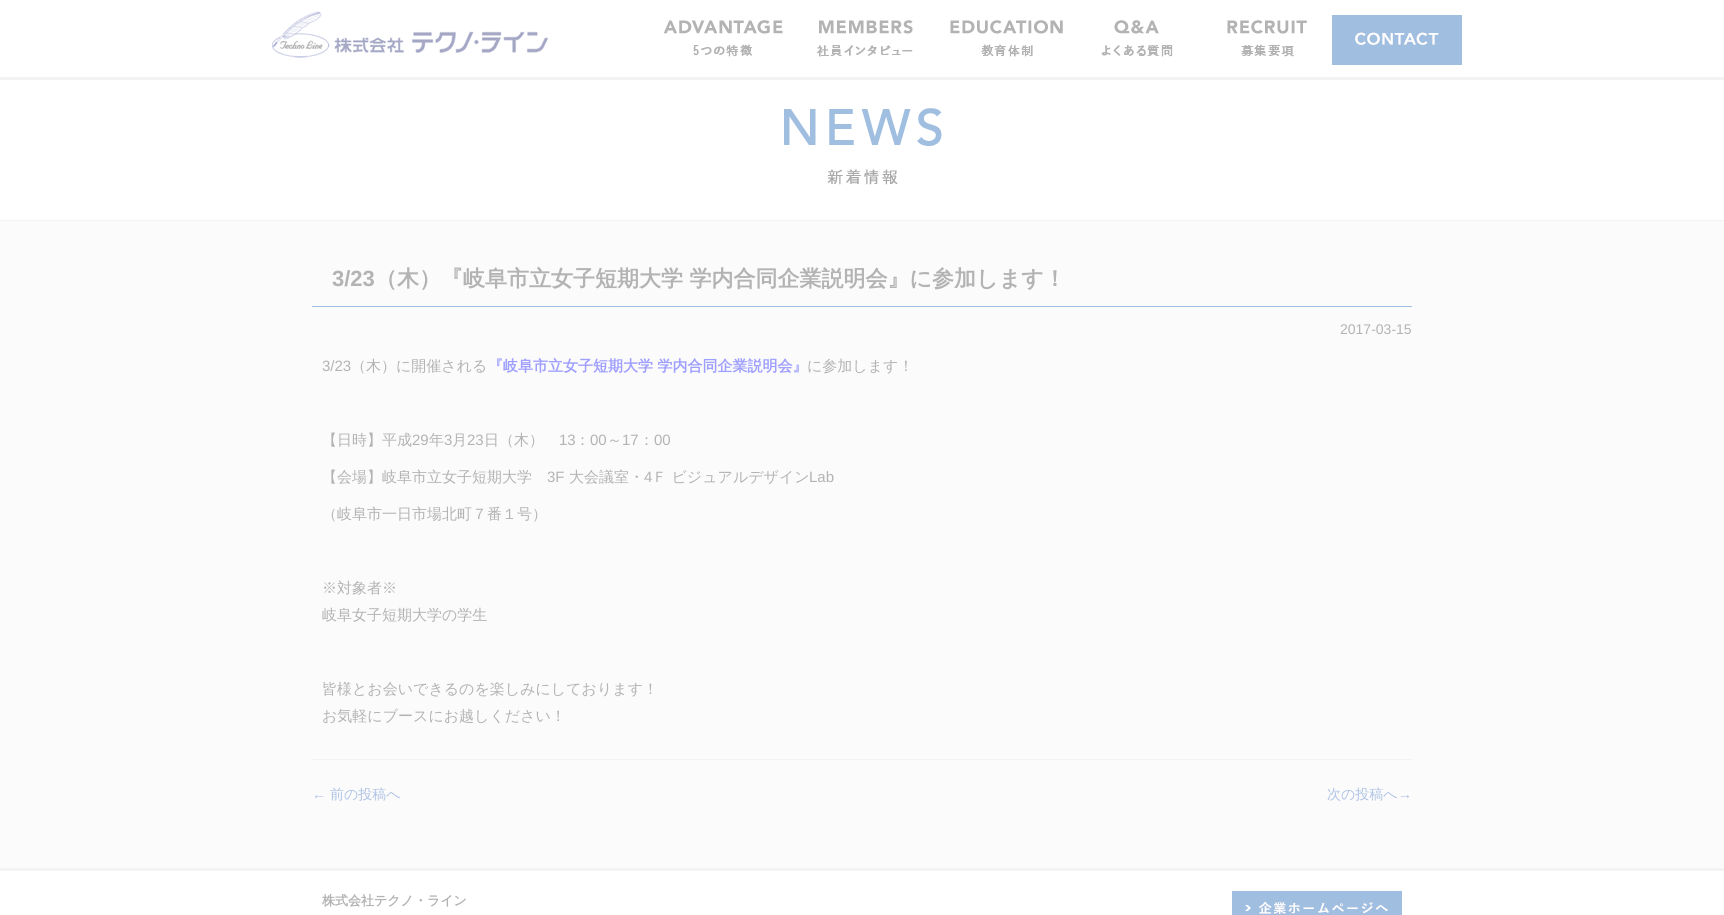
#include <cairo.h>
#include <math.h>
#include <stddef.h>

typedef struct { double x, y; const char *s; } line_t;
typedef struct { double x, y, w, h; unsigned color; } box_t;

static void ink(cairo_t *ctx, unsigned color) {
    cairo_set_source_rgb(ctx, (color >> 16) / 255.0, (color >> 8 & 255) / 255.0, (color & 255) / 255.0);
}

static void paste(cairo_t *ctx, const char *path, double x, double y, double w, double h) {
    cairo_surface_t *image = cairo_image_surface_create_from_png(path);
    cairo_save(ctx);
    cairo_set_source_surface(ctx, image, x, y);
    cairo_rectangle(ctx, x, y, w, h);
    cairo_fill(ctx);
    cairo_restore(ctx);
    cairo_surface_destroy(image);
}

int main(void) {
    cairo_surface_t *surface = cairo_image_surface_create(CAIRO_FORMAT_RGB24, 1724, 915);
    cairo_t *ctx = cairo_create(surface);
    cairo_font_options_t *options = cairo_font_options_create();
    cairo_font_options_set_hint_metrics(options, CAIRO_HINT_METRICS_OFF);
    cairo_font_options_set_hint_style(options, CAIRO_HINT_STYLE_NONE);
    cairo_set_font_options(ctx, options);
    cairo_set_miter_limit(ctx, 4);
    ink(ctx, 0xFFFFFF);
    cairo_paint(ctx);
    ink(ctx, 0xF3F3F3);
    cairo_rectangle(ctx, 0, 77, 1724, 3);
    cairo_fill(ctx);
    paste(ctx, "media/1.png", 272, 11, 276, 47);
    paste(ctx, "media/2.png", 663, 20, 120, 37);
    paste(ctx, "media/3.png", 817, 20, 96, 37);
    paste(ctx, "media/4.png", 950, 20, 113, 37);
    paste(ctx, "media/5.png", 1101, 20, 72, 37);
    paste(ctx, "media/6.png", 1227, 20, 80, 37);
    paste(ctx, "media/7.png", 1332, 15, 130, 50);
    cairo_rectangle(ctx, 0, 220, 1724, 1);
    cairo_fill(ctx);
    paste(ctx, "media/8.png", 784, 108, 158, 77);
    {
        static const box_t items[] = {
            {0, 221, 1724, 647, 0xFBFBFB},
            {0, 868, 1724, 3, 0xF3F3F3},
            {312, 306, 1100, 1, 0x9FBFE0},
        };
        for (size_t i = 0; i < sizeof items / sizeof *items; i++) {
            ink(ctx, items[i].color);
            cairo_rectangle(ctx, items[i].x, items[i].y, items[i].w, items[i].h);
            cairo_fill(ctx);
        }
    }
    cairo_select_font_face(ctx, "Liberation Sans", CAIRO_FONT_SLANT_NORMAL, CAIRO_FONT_WEIGHT_BOLD);
    cairo_set_font_size(ctx, 22);
    ink(ctx, 0xB3B3B3);
    cairo_move_to(ctx, 332, 286);
    cairo_show_text(ctx, "3/23");
    cairo_select_font_face(ctx, "WenQuanYi Zen Hei", CAIRO_FONT_SLANT_NORMAL, CAIRO_FONT_WEIGHT_BOLD);
    cairo_move_to(ctx, 375, 286);
    cairo_show_text(ctx, "（木）『岐阜市立女子短期大学 学内合同企業説明会』に参加します！");
    cairo_select_font_face(ctx, "Liberation Sans", CAIRO_FONT_SLANT_NORMAL, CAIRO_FONT_WEIGHT_NORMAL);
    cairo_set_font_size(ctx, 14);
    cairo_move_to(ctx, 1340, 334);
    cairo_show_text(ctx, "2017-03-15");
    cairo_set_font_size(ctx, 15);
    cairo_move_to(ctx, 322, 371);
    cairo_show_text(ctx, "3/23");
    cairo_select_font_face(ctx, "WenQuanYi Zen Hei Medium", CAIRO_FONT_SLANT_NORMAL, CAIRO_FONT_WEIGHT_NORMAL);
    cairo_move_to(ctx, 351, 371);
    cairo_show_text(ctx, "（木）に開催される");
    cairo_select_font_face(ctx, "WenQuanYi Zen Hei", CAIRO_FONT_SLANT_NORMAL, CAIRO_FONT_WEIGHT_BOLD);
    ink(ctx, 0x9F9FFF);
    cairo_move_to(ctx, 488, 371);
    cairo_show_text(ctx, "『岐阜市立女子短期大学 学内合同企業説明会』");
    cairo_select_font_face(ctx, "WenQuanYi Zen Hei Medium", CAIRO_FONT_SLANT_NORMAL, CAIRO_FONT_WEIGHT_NORMAL);
    ink(ctx, 0xB3B3B3);
    cairo_move_to(ctx, 807, 371);
    cairo_show_text(ctx, "に参加します！");
    cairo_move_to(ctx, 322, 445);
    cairo_show_text(ctx, "【日時】平成");
    cairo_select_font_face(ctx, "Liberation Sans", CAIRO_FONT_SLANT_NORMAL, CAIRO_FONT_WEIGHT_NORMAL);
    cairo_move_to(ctx, 412, 445);
    cairo_show_text(ctx, "29");
    cairo_select_font_face(ctx, "WenQuanYi Zen Hei Medium", CAIRO_FONT_SLANT_NORMAL, CAIRO_FONT_WEIGHT_NORMAL);
    cairo_move_to(ctx, 429, 445);
    cairo_show_text(ctx, "年");
    cairo_select_font_face(ctx, "Liberation Sans", CAIRO_FONT_SLANT_NORMAL, CAIRO_FONT_WEIGHT_NORMAL);
    cairo_move_to(ctx, 444, 445);
    cairo_show_text(ctx, "3");
    cairo_select_font_face(ctx, "WenQuanYi Zen Hei Medium", CAIRO_FONT_SLANT_NORMAL, CAIRO_FONT_WEIGHT_NORMAL);
    cairo_move_to(ctx, 452, 445);
    cairo_show_text(ctx, "月");
    cairo_select_font_face(ctx, "Liberation Sans", CAIRO_FONT_SLANT_NORMAL, CAIRO_FONT_WEIGHT_NORMAL);
    cairo_move_to(ctx, 467, 445);
    cairo_show_text(ctx, "23");
    cairo_select_font_face(ctx, "WenQuanYi Zen Hei Medium", CAIRO_FONT_SLANT_NORMAL, CAIRO_FONT_WEIGHT_NORMAL);
    cairo_move_to(ctx, 484, 445);
    cairo_show_text(ctx, "日（木）");
    cairo_select_font_face(ctx, "Liberation Sans", CAIRO_FONT_SLANT_NORMAL, CAIRO_FONT_WEIGHT_NORMAL);
    cairo_move_to(ctx, 559, 445);
    cairo_show_text(ctx, "13");
    cairo_select_font_face(ctx, "WenQuanYi Zen Hei Medium", CAIRO_FONT_SLANT_NORMAL, CAIRO_FONT_WEIGHT_NORMAL);
    cairo_move_to(ctx, 575, 445);
    cairo_show_text(ctx, "：");
    cairo_select_font_face(ctx, "Liberation Sans", CAIRO_FONT_SLANT_NORMAL, CAIRO_FONT_WEIGHT_NORMAL);
    cairo_move_to(ctx, 590, 445);
    cairo_show_text(ctx, "00");
    cairo_select_font_face(ctx, "WenQuanYi Zen Hei Medium", CAIRO_FONT_SLANT_NORMAL, CAIRO_FONT_WEIGHT_NORMAL);
    cairo_move_to(ctx, 607, 445);
    cairo_show_text(ctx, "～");
    cairo_select_font_face(ctx, "Liberation Sans", CAIRO_FONT_SLANT_NORMAL, CAIRO_FONT_WEIGHT_NORMAL);
    cairo_move_to(ctx, 622, 445);
    cairo_show_text(ctx, "17");
    cairo_select_font_face(ctx, "WenQuanYi Zen Hei Medium", CAIRO_FONT_SLANT_NORMAL, CAIRO_FONT_WEIGHT_NORMAL);
    cairo_move_to(ctx, 639, 445);
    cairo_show_text(ctx, "：");
    cairo_select_font_face(ctx, "Liberation Sans", CAIRO_FONT_SLANT_NORMAL, CAIRO_FONT_WEIGHT_NORMAL);
    cairo_move_to(ctx, 654, 445);
    cairo_show_text(ctx, "00");
    cairo_select_font_face(ctx, "WenQuanYi Zen Hei Medium", CAIRO_FONT_SLANT_NORMAL, CAIRO_FONT_WEIGHT_NORMAL);
    cairo_move_to(ctx, 322, 482);
    cairo_show_text(ctx, "【会場】岐阜市立女子短期大学");
    cairo_select_font_face(ctx, "Liberation Sans", CAIRO_FONT_SLANT_NORMAL, CAIRO_FONT_WEIGHT_NORMAL);
    cairo_move_to(ctx, 547, 482);
    cairo_show_text(ctx, "3F");
    cairo_select_font_face(ctx, "WenQuanYi Zen Hei Medium", CAIRO_FONT_SLANT_NORMAL, CAIRO_FONT_WEIGHT_NORMAL);
    cairo_move_to(ctx, 569, 482);
    cairo_show_text(ctx, "大会議室・");
    cairo_select_font_face(ctx, "Liberation Sans", CAIRO_FONT_SLANT_NORMAL, CAIRO_FONT_WEIGHT_NORMAL);
    cairo_move_to(ctx, 644, 482);
    cairo_show_text(ctx, "4");
    cairo_select_font_face(ctx, "WenQuanYi Zen Hei Medium", CAIRO_FONT_SLANT_NORMAL, CAIRO_FONT_WEIGHT_NORMAL);
    cairo_move_to(ctx, 652, 482);
    cairo_show_text(ctx, "Ｆ ビジュアルデザイン");
    cairo_select_font_face(ctx, "Liberation Sans", CAIRO_FONT_SLANT_NORMAL, CAIRO_FONT_WEIGHT_NORMAL);
    cairo_move_to(ctx, 809, 482);
    cairo_show_text(ctx, "Lab");
    cairo_select_font_face(ctx, "WenQuanYi Zen Hei Medium", CAIRO_FONT_SLANT_NORMAL, CAIRO_FONT_WEIGHT_NORMAL);
    {
        static const line_t items[] = {
            {322, 519, "（岐阜市一日市場北町７番１号）"},
            {322, 593, "※対象者※"},
            {322, 620, "岐阜女子短期大学の学生"},
            {322, 694, "皆様とお会いできるのを楽しみにしております！"},
            {322, 721, "お気軽にブースにお越しください！"},
        };
        for (size_t i = 0; i < sizeof items / sizeof *items; i++) {
            cairo_move_to(ctx, items[i].x, items[i].y);
            cairo_show_text(ctx, items[i].s);
        }
    }
    ink(ctx, 0xF3F3F3);
    cairo_rectangle(ctx, 312, 759, 1100, 1);
    cairo_fill(ctx);
    cairo_select_font_face(ctx, "Liberation Sans", CAIRO_FONT_SLANT_NORMAL, CAIRO_FONT_WEIGHT_NORMAL);
    cairo_set_font_size(ctx, 14);
    ink(ctx, 0xAFC3E5);
    cairo_move_to(ctx, 312, 799);
    cairo_show_text(ctx, "←");
    cairo_select_font_face(ctx, "WenQuanYi Zen Hei Medium", CAIRO_FONT_SLANT_NORMAL, CAIRO_FONT_WEIGHT_NORMAL);
    cairo_move_to(ctx, 330, 799);
    cairo_show_text(ctx, "前の投稿へ");
    cairo_move_to(ctx, 1327, 799);
    cairo_show_text(ctx, "次の投稿へ");
    cairo_select_font_face(ctx, "Liberation Sans", CAIRO_FONT_SLANT_NORMAL, CAIRO_FONT_WEIGHT_NORMAL);
    cairo_move_to(ctx, 1398, 799);
    cairo_show_text(ctx, "→");
    cairo_select_font_face(ctx, "WenQuanYi Zen Hei", CAIRO_FONT_SLANT_NORMAL, CAIRO_FONT_WEIGHT_BOLD);
    cairo_set_font_size(ctx, 13);
    ink(ctx, 0xB3B3B3);
    cairo_move_to(ctx, 322, 905);
    cairo_show_text(ctx, "株式会社テクノ・ライン");
    paste(ctx, "media/9.png", 1232, 891, 170, 24);
    cairo_surface_write_to_png(surface, "image.png");
    cairo_font_options_destroy(options);
    cairo_destroy(ctx);
    cairo_surface_destroy(surface);
    return 0;
}
